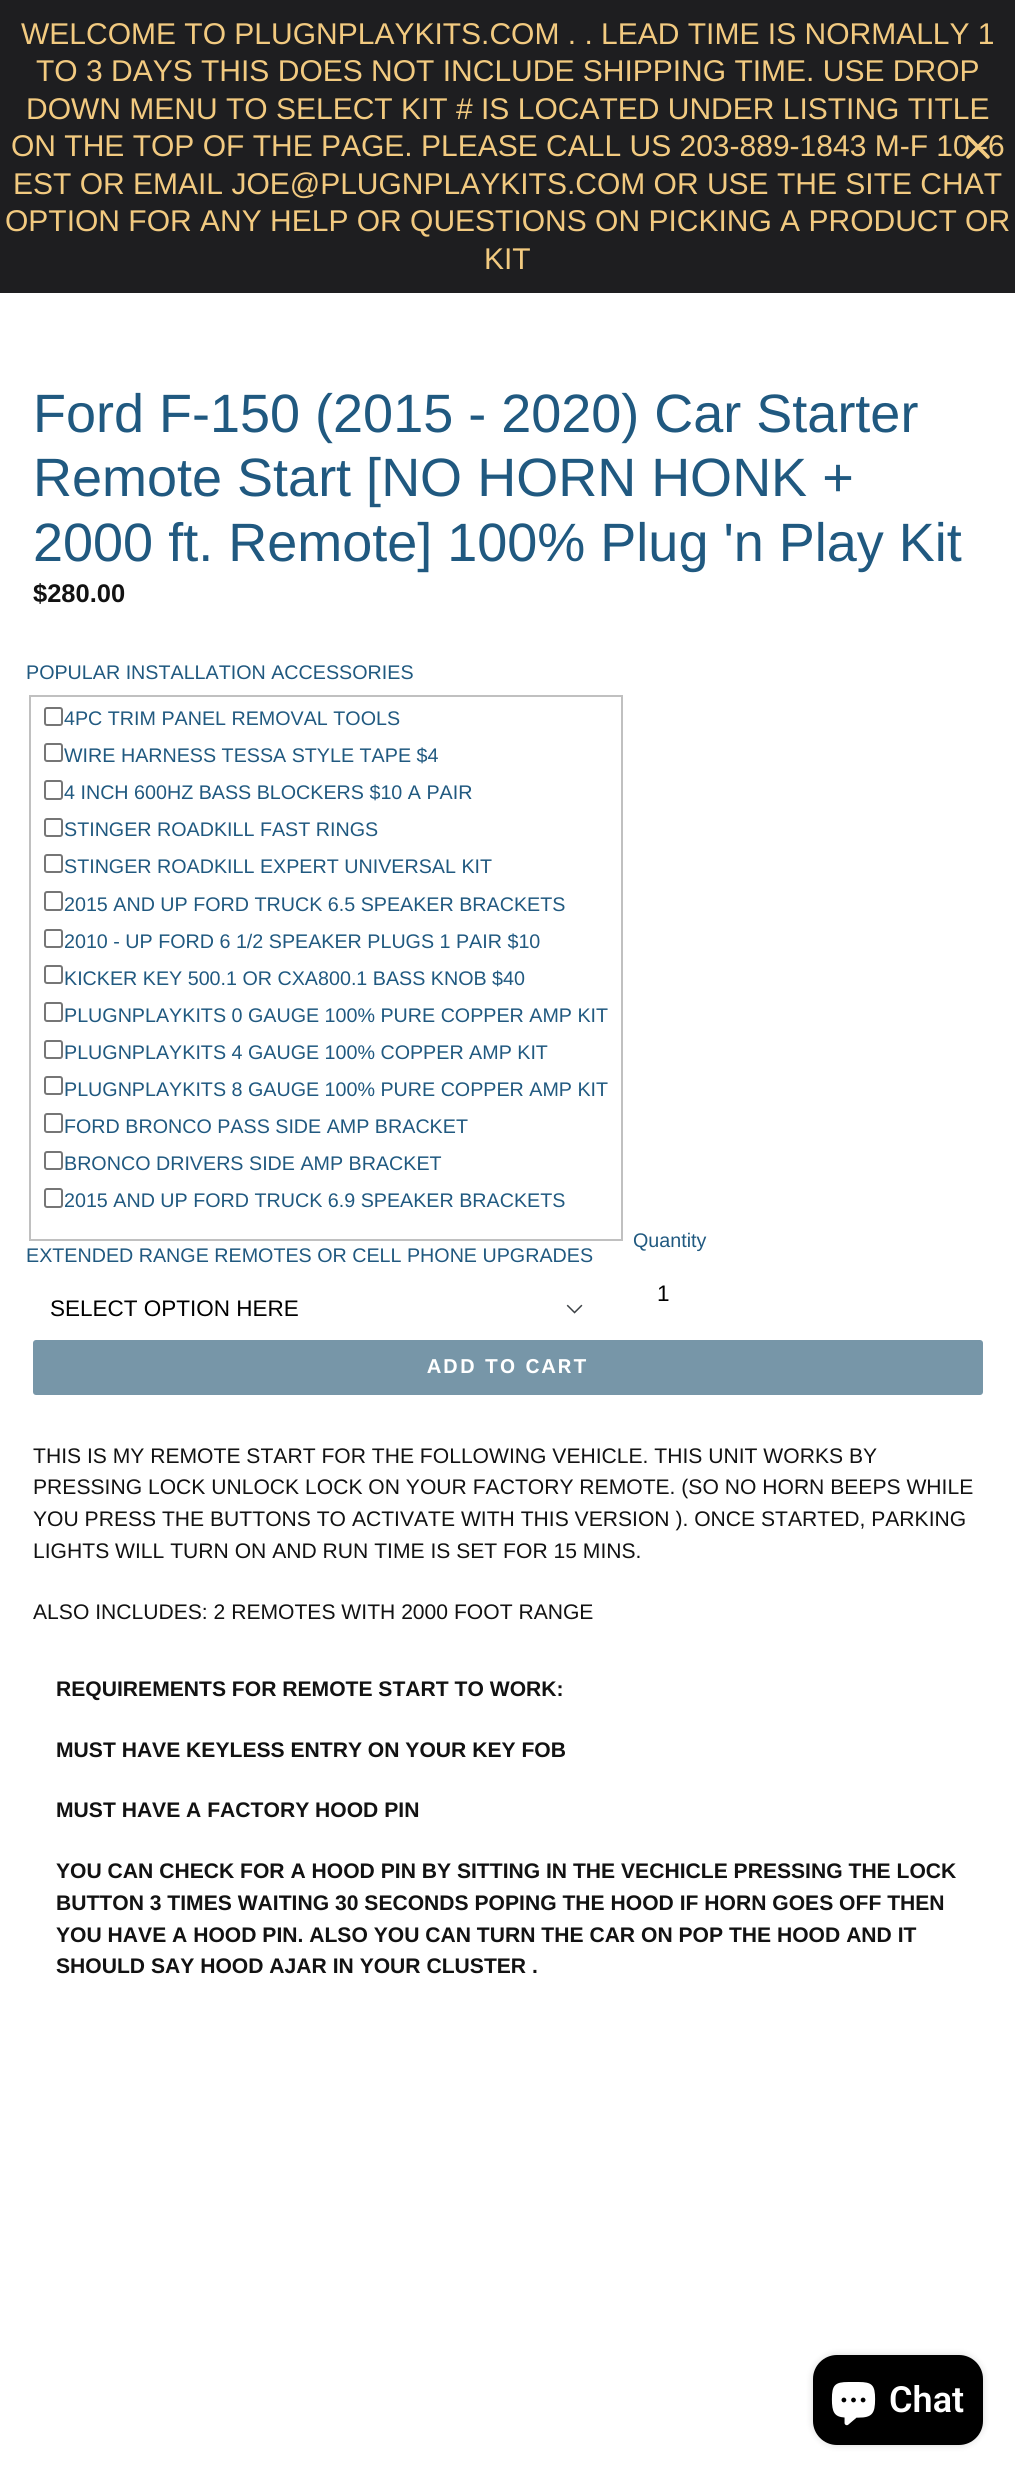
#include <cairo.h>
#include <math.h>
#include <stddef.h>

typedef struct { double x, y; const char *s; } line_t;

static void ink(cairo_t *ctx, unsigned color) {
    cairo_set_source_rgb(ctx, (color >> 16) / 255.0, (color >> 8 & 255) / 255.0, (color & 255) / 255.0);
}

static void write_spaced(cairo_t *ctx, double x, double y, const char *s, double letter, double word) {
    cairo_move_to(ctx, x, y);
    while (*s) {
        char ch[5] = {0};
        int n = 0;
        do ch[n++] = *s++; while ((*s & 0xC0) == 0x80);
        cairo_show_text(ctx, ch);
        cairo_rel_move_to(ctx, letter + word * (*ch == ' '), 0);
    }
}

static void round_path(cairo_t *ctx, double x, double y, double w, double h, double r) {
    cairo_new_sub_path(ctx);
    cairo_arc(ctx, x + w - r, y + h - r, r, 0, M_PI / 2);
    cairo_arc(ctx, x + r, y + h - r, r, M_PI / 2, M_PI);
    cairo_arc(ctx, x + r, y + r, r, M_PI, 1.5 * M_PI);
    cairo_arc(ctx, x + w - r, y + r, r, 1.5 * M_PI, 2 * M_PI);
    cairo_close_path(ctx);
}

static void blur_box(cairo_t *ctx, double x, double y, double w, double h, double r, double blur, double alpha) {
    cairo_push_group_with_content(ctx, CAIRO_CONTENT_ALPHA);
    cairo_set_operator(ctx, CAIRO_OPERATOR_SOURCE);
    for (int i = 15; i >= -15 && fmin(w, h) + blur * i / 3 > 0; i -= 2) {
        double e = blur * i / 6;
        cairo_set_source_rgba(ctx, 0, 0, 0, alpha * erfc((i - 1) / 8.5) / 2);
        round_path(ctx, x - e, y - e, w + 2 * e, h + 2 * e, fmax(0, fmin(r + e + blur * .6, fmin(w, h) / 2 + e)));
        cairo_fill(ctx);
    }
    cairo_pattern_t *soft = cairo_pop_group(ctx);
    cairo_mask(ctx, soft);
    cairo_pattern_destroy(soft);
}

static void paste(cairo_t *ctx, const char *path, double x, double y, double w, double h) {
    cairo_surface_t *image = cairo_image_surface_create_from_png(path);
    cairo_save(ctx);
    cairo_set_source_surface(ctx, image, x, y);
    cairo_rectangle(ctx, x, y, w, h);
    cairo_fill(ctx);
    cairo_restore(ctx);
    cairo_surface_destroy(image);
}

int main(void) {
    cairo_surface_t *surface = cairo_image_surface_create(CAIRO_FORMAT_RGB24, 1015, 2476);
    cairo_t *ctx = cairo_create(surface);
    cairo_font_options_t *options = cairo_font_options_create();
    cairo_font_options_set_hint_metrics(options, CAIRO_HINT_METRICS_OFF);
    cairo_font_options_set_hint_style(options, CAIRO_HINT_STYLE_NONE);
    cairo_set_font_options(ctx, options);
    cairo_set_miter_limit(ctx, 4);
    ink(ctx, 0xFFFFFF);
    cairo_paint(ctx);
    ink(ctx, 0x1E1E20);
    cairo_rectangle(ctx, 0, 0, 1015, 293);
    cairo_fill(ctx);
    cairo_select_font_face(ctx, "Liberation Sans", CAIRO_FONT_SLANT_NORMAL, CAIRO_FONT_WEIGHT_NORMAL);
    cairo_set_font_size(ctx, 30);
    ink(ctx, 0xF2CA80);
    {
        static const line_t items[] = {
            {21, 44, "WELCOME TO PLUGNPLAYKITS.COM . . LEAD TIME IS NORMALLY 1"},
            {36, 81, "TO 3 DAYS THIS DOES NOT INCLUDE SHIPPING TIME. USE DROP"},
            {26, 119, "DOWN MENU TO SELECT KIT # IS LOCATED UNDER LISTING TITLE"},
            {11, 156, "ON THE TOP OF THE PAGE. PLEASE CALL US 203-889-1843 M-F 10 -6"},
            {13, 194, "EST OR EMAIL JOE@PLUGNPLAYKITS.COM OR USE THE SITE CHAT"},
            {5, 231, "OPTION FOR ANY HELP OR QUESTIONS ON PICKING A PRODUCT OR"},
            {484, 269, "KIT"},
        };
        for (size_t i = 0; i < sizeof items / sizeof *items; i++) {
            cairo_move_to(ctx, items[i].x, items[i].y);
            cairo_show_text(ctx, items[i].s);
        }
    }
    paste(ctx, "media/1.png", 966, 135, 24, 24);
    cairo_set_font_size(ctx, 54);
    ink(ctx, 0x205980);
    {
        static const line_t items[] = {
            {33, 432, "Ford F-150 (2015 - 2020) Car Starter"},
            {33, 496, "Remote Start [NO HORN HONK +"},
            {33, 561, "2000 ft. Remote] 100% Plug 'n Play Kit"},
        };
        for (size_t i = 0; i < sizeof items / sizeof *items; i++) {
            cairo_move_to(ctx, items[i].x, items[i].y);
            cairo_show_text(ctx, items[i].s);
        }
    }
    cairo_select_font_face(ctx, "Liberation Sans", CAIRO_FONT_SLANT_NORMAL, CAIRO_FONT_WEIGHT_BOLD);
    cairo_set_font_size(ctx, 25.5);
    ink(ctx, 0x121212);
    cairo_move_to(ctx, 33, 602);
    cairo_show_text(ctx, "$280.00");
    cairo_select_font_face(ctx, "Liberation Sans", CAIRO_FONT_SLANT_NORMAL, CAIRO_FONT_WEIGHT_NORMAL);
    cairo_set_font_size(ctx, 19.7);
    ink(ctx, 0x205980);
    cairo_move_to(ctx, 26, 679);
    cairo_show_text(ctx, "POPULAR INSTALLATION ACCESSORIES");
    cairo_rectangle(ctx, 30, 696, 592, 544);
    ink(ctx, 0xC0C0C0);
    cairo_stroke(ctx);
    round_path(ctx, 45, 708, 17, 17, 2);
    ink(ctx, 0x767676);
    cairo_stroke(ctx);
    ink(ctx, 0x205980);
    cairo_move_to(ctx, 64, 725);
    cairo_show_text(ctx, "4PC TRIM PANEL REMOVAL TOOLS");
    round_path(ctx, 45, 744, 17, 17, 2);
    ink(ctx, 0x767676);
    cairo_stroke(ctx);
    ink(ctx, 0x205980);
    cairo_move_to(ctx, 64, 762);
    cairo_show_text(ctx, "WIRE HARNESS TESSA STYLE TAPE $4");
    round_path(ctx, 45, 781, 17, 18, 2);
    ink(ctx, 0x767676);
    cairo_stroke(ctx);
    ink(ctx, 0x205980);
    cairo_move_to(ctx, 64, 799);
    cairo_show_text(ctx, "4 INCH 600HZ BASS BLOCKERS $10 A PAIR");
    round_path(ctx, 45, 819, 17, 17, 2);
    ink(ctx, 0x767676);
    cairo_stroke(ctx);
    ink(ctx, 0x205980);
    cairo_move_to(ctx, 64, 836);
    cairo_show_text(ctx, "STINGER ROADKILL FAST RINGS");
    round_path(ctx, 45, 855, 17, 17, 2);
    ink(ctx, 0x767676);
    cairo_stroke(ctx);
    ink(ctx, 0x205980);
    cairo_move_to(ctx, 64, 873);
    cairo_show_text(ctx, "STINGER ROADKILL EXPERT UNIVERSAL KIT");
    round_path(ctx, 45, 892, 17, 18, 2);
    ink(ctx, 0x767676);
    cairo_stroke(ctx);
    ink(ctx, 0x205980);
    cairo_move_to(ctx, 64, 911);
    cairo_show_text(ctx, "2015 AND UP FORD TRUCK 6.5 SPEAKER BRACKETS");
    round_path(ctx, 45, 930, 17, 17, 2);
    ink(ctx, 0x767676);
    cairo_stroke(ctx);
    ink(ctx, 0x205980);
    cairo_move_to(ctx, 64, 948);
    cairo_show_text(ctx, "2010 - UP FORD 6 1/2 SPEAKER PLUGS 1 PAIR $10");
    round_path(ctx, 45, 966, 17, 17, 2);
    ink(ctx, 0x767676);
    cairo_stroke(ctx);
    ink(ctx, 0x205980);
    cairo_move_to(ctx, 64, 985);
    cairo_show_text(ctx, "KICKER KEY 500.1 OR CXA800.1 BASS KNOB $40");
    round_path(ctx, 45, 1003, 17, 18, 2);
    ink(ctx, 0x767676);
    cairo_stroke(ctx);
    ink(ctx, 0x205980);
    cairo_move_to(ctx, 64, 1022);
    cairo_show_text(ctx, "PLUGNPLAYKITS 0 GAUGE 100% PURE COPPER AMP KIT");
    round_path(ctx, 45, 1041, 17, 17, 2);
    ink(ctx, 0x767676);
    cairo_stroke(ctx);
    ink(ctx, 0x205980);
    cairo_move_to(ctx, 64, 1059);
    cairo_show_text(ctx, "PLUGNPLAYKITS 4 GAUGE 100% COPPER AMP KIT");
    round_path(ctx, 45, 1077, 17, 17, 2);
    ink(ctx, 0x767676);
    cairo_stroke(ctx);
    ink(ctx, 0x205980);
    cairo_move_to(ctx, 64, 1096);
    cairo_show_text(ctx, "PLUGNPLAYKITS 8 GAUGE 100% PURE COPPER AMP KIT");
    round_path(ctx, 45, 1114, 17, 18, 2);
    ink(ctx, 0x767676);
    cairo_stroke(ctx);
    ink(ctx, 0x205980);
    cairo_move_to(ctx, 64, 1133);
    cairo_show_text(ctx, "FORD BRONCO PASS SIDE AMP BRACKET");
    round_path(ctx, 45, 1152, 17, 17, 2);
    ink(ctx, 0x767676);
    cairo_stroke(ctx);
    ink(ctx, 0x205980);
    cairo_move_to(ctx, 64, 1170);
    cairo_show_text(ctx, "BRONCO DRIVERS SIDE AMP BRACKET");
    round_path(ctx, 45, 1189, 17, 18, 2);
    ink(ctx, 0x767676);
    cairo_stroke(ctx);
    ink(ctx, 0x205980);
    cairo_move_to(ctx, 64, 1207);
    cairo_show_text(ctx, "2015 AND UP FORD TRUCK 6.9 SPEAKER BRACKETS");
    cairo_move_to(ctx, 26, 1262);
    cairo_show_text(ctx, "EXTENDED RANGE REMOTES OR CELL PHONE UPGRADES");
    paste(ctx, "media/2.png", 566, 1304, 17, 10);
    cairo_set_font_size(ctx, 22.5);
    ink(ctx, 0x000000);
    cairo_move_to(ctx, 50, 1316);
    cairo_show_text(ctx, "SELECT OPTION HERE");
    cairo_set_font_size(ctx, 19.7);
    ink(ctx, 0x205980);
    cairo_move_to(ctx, 633, 1247);
    cairo_show_text(ctx, "Quantity");
    cairo_set_font_size(ctx, 22.5);
    ink(ctx, 0x000000);
    cairo_move_to(ctx, 657, 1301);
    cairo_show_text(ctx, "1");
    ink(ctx, 0x7796A8);
    round_path(ctx, 33, 1340, 950, 55, 3);
    cairo_fill(ctx);
    cairo_select_font_face(ctx, "Work Sans SemiBold", CAIRO_FONT_SLANT_NORMAL, CAIRO_FONT_WEIGHT_NORMAL);
    cairo_set_font_size(ctx, 21);
    ink(ctx, 0xFFFFFF);
    write_spaced(ctx, 427, 1373, "ADD TO CART", 1.75, 0);
    cairo_select_font_face(ctx, "Liberation Sans", CAIRO_FONT_SLANT_NORMAL, CAIRO_FONT_WEIGHT_NORMAL);
    cairo_set_font_size(ctx, 21.1);
    ink(ctx, 0x121212);
    {
        static const line_t items[] = {
            {33, 1463, "THIS IS MY REMOTE START FOR THE FOLLOWING VEHICLE. THIS UNIT WORKS BY"},
            {33, 1494, "PRESSING LOCK UNLOCK LOCK ON YOUR FACTORY REMOTE. (SO NO HORN BEEPS WHILE"},
            {33, 1526, "YOU PRESS THE BUTTONS TO ACTIVATE WITH THIS VERSION ). ONCE STARTED, PARKING"},
            {33, 1558, "LIGHTS WILL TURN ON AND RUN TIME IS SET FOR 15 MINS."},
            {33, 1619, "ALSO INCLUDES: 2 REMOTES WITH 2000 FOOT RANGE"},
        };
        for (size_t i = 0; i < sizeof items / sizeof *items; i++) {
            cairo_move_to(ctx, items[i].x, items[i].y);
            cairo_show_text(ctx, items[i].s);
        }
    }
    cairo_select_font_face(ctx, "Liberation Sans", CAIRO_FONT_SLANT_NORMAL, CAIRO_FONT_WEIGHT_BOLD);
    {
        static const line_t items[] = {
            {56, 1696, "REQUIREMENTS FOR REMOTE START TO WORK:"},
            {56, 1757, "MUST HAVE KEYLESS ENTRY ON YOUR KEY FOB"},
            {56, 1817, "MUST HAVE A FACTORY HOOD PIN"},
            {56, 1878, "YOU CAN CHECK FOR A HOOD PIN BY SITTING IN THE VECHICLE PRESSING THE LOCK"},
            {56, 1910, "BUTTON 3 TIMES WAITING 30 SECONDS POPING THE HOOD IF HORN GOES OFF THEN"},
            {56, 1942, "YOU HAVE A HOOD PIN. ALSO YOU CAN TURN THE CAR ON POP THE HOOD AND IT"},
            {56, 1973, "SHOULD SAY HOOD AJAR IN YOUR CLUSTER ."},
        };
        for (size_t i = 0; i < sizeof items / sizeof *items; i++) {
            cairo_move_to(ctx, items[i].x, items[i].y);
            cairo_show_text(ctx, items[i].s);
        }
    }
    ink(ctx, 0x000000);
    blur_box(ctx, 813, 2355, 170, 90, 24, 4, 0.15);
    ink(ctx, 0x000000);
    round_path(ctx, 813, 2355, 170, 90, 24);
    cairo_fill(ctx);
    paste(ctx, "media/3.png", 831, 2382, 45, 44);
    cairo_select_font_face(ctx, "Roboto SemiBold", CAIRO_FONT_SLANT_NORMAL, CAIRO_FONT_WEIGHT_NORMAL);
    cairo_set_font_size(ctx, 36);
    ink(ctx, 0xFFFFFF);
    cairo_move_to(ctx, 889, 2412);
    cairo_show_text(ctx, "Chat");
    cairo_surface_write_to_png(surface, "image.png");
    cairo_font_options_destroy(options);
    cairo_destroy(ctx);
    cairo_surface_destroy(surface);
    return 0;
}
